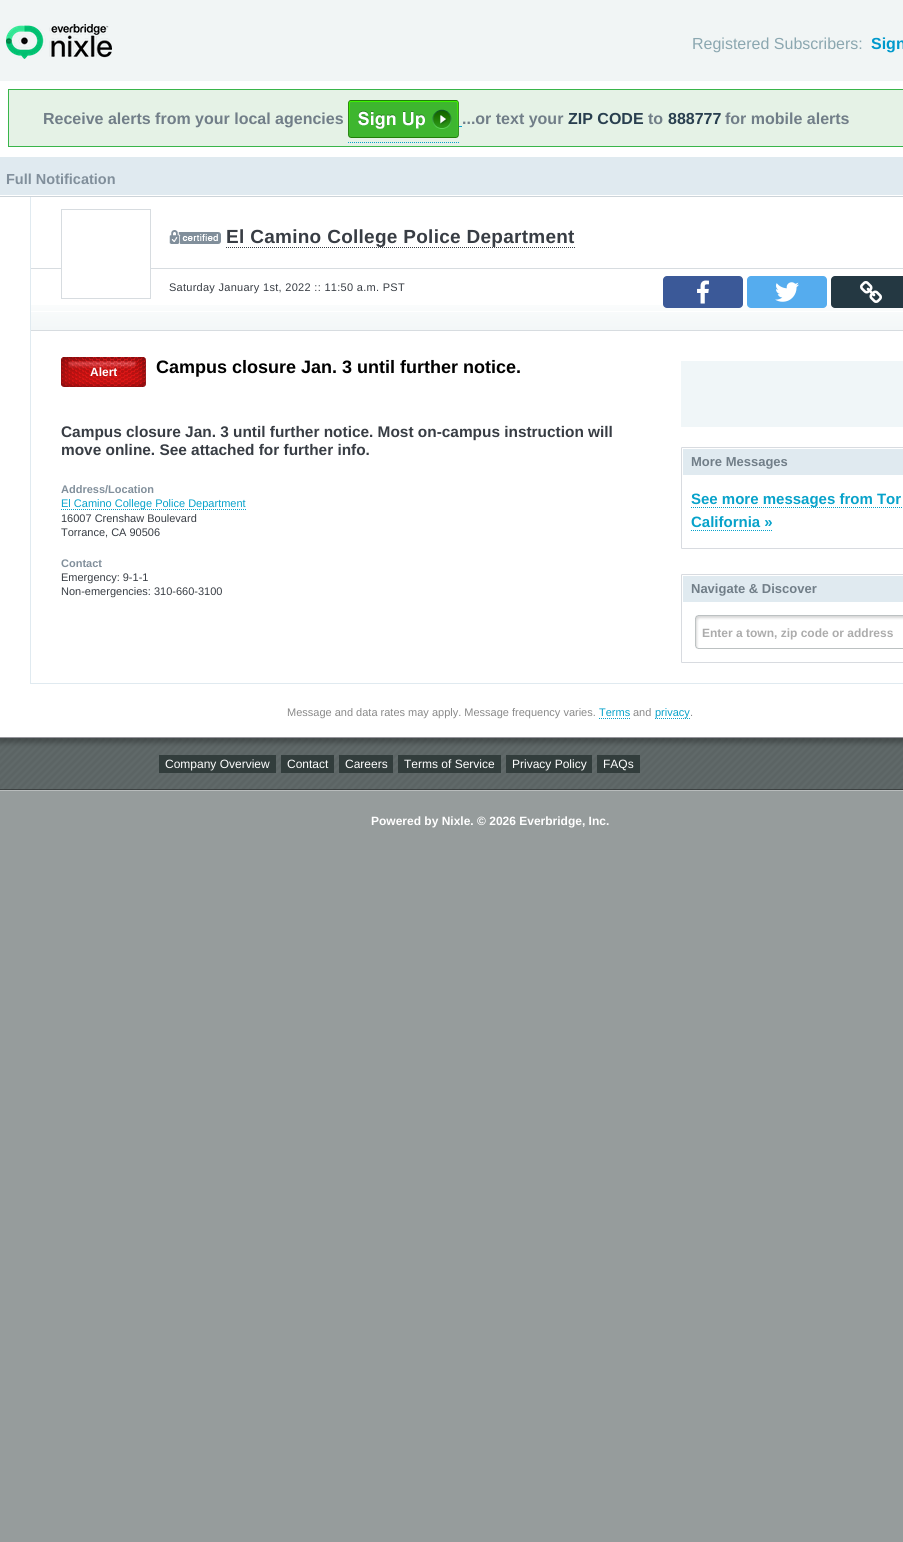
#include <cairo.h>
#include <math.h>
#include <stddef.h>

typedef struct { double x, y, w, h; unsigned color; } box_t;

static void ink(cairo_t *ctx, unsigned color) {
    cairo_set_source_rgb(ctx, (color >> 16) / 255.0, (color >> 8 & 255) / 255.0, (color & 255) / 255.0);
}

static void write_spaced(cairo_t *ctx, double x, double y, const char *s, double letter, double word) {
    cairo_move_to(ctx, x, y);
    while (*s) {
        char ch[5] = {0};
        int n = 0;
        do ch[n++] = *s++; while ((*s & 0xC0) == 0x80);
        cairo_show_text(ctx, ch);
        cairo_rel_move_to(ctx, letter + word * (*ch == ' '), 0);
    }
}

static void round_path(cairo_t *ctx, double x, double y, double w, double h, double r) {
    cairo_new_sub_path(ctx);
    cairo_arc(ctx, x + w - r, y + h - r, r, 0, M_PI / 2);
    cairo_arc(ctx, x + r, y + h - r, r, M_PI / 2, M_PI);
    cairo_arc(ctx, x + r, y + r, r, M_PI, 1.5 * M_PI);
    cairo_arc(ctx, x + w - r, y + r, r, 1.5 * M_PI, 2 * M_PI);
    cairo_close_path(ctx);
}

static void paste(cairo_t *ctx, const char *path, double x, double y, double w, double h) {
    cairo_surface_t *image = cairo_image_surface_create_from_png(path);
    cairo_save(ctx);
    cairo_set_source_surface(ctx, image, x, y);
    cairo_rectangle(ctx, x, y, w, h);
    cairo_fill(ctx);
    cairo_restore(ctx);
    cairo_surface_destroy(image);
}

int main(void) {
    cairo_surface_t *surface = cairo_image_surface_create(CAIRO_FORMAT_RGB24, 903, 1542);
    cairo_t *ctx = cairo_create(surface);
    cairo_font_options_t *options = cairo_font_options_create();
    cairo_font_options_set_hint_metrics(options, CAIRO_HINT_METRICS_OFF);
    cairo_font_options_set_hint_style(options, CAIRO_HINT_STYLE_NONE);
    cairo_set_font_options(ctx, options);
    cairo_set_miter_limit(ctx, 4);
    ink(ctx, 0x969C9C);
    cairo_paint(ctx);
    ink(ctx, 0xF1F5F5);
    cairo_rectangle(ctx, 0, 0, 903, 81);
    cairo_fill(ctx);
    paste(ctx, "media/1.png", 6, 24, 106, 35);
    cairo_select_font_face(ctx, "Liberation Sans", CAIRO_FONT_SLANT_NORMAL, CAIRO_FONT_WEIGHT_NORMAL);
    cairo_set_font_size(ctx, 16);
    ink(ctx, 0x8BA7B0);
    cairo_move_to(ctx, 692, 49);
    cairo_show_text(ctx, "Registered Subscribers:");
    cairo_select_font_face(ctx, "Liberation Sans", CAIRO_FONT_SLANT_NORMAL, CAIRO_FONT_WEIGHT_BOLD);
    ink(ctx, 0x0099CC);
    cairo_move_to(ctx, 871, 49);
    cairo_show_text(ctx, "Sign");
    ink(ctx, 0xFFFFFF);
    cairo_rectangle(ctx, 0, 81, 903, 76);
    cairo_fill(ctx);
    ink(ctx, 0xE5F2E6);
    cairo_rectangle(ctx, 8.5, 89.5, 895, 57);
    cairo_fill_preserve(ctx);
    ink(ctx, 0x39B54A);
    cairo_set_line_width(ctx, 1);
    cairo_stroke(ctx);
    ink(ctx, 0x717E88);
    cairo_move_to(ctx, 43, 124);
    cairo_show_text(ctx, "Receive alerts from your local agencies");
    cairo_new_path(ctx);
    cairo_move_to(ctx, 348, 142.5);
    cairo_line_to(ctx, 459, 142.5);
    ink(ctx, 0x07A2CA);
    cairo_set_dash(ctx, (double[]){1, 1}, 2, 0);
    cairo_stroke(ctx);
    cairo_rectangle(ctx, 459, 126, 3, 1);
    cairo_fill(ctx);
    paste(ctx, "media/2.png", 348, 100, 111, 38);
    ink(ctx, 0x717E88);
    cairo_move_to(ctx, 462, 124);
    cairo_show_text(ctx, "...or text your");
    ink(ctx, 0x293F4F);
    cairo_move_to(ctx, 568, 124);
    cairo_show_text(ctx, "ZIP CODE");
    ink(ctx, 0x717E88);
    cairo_move_to(ctx, 648, 124);
    cairo_show_text(ctx, "to");
    ink(ctx, 0x293F4F);
    cairo_move_to(ctx, 668, 124);
    cairo_show_text(ctx, "888777");
    ink(ctx, 0x717E88);
    cairo_move_to(ctx, 725, 124);
    cairo_show_text(ctx, "for mobile alerts");
    ink(ctx, 0xE0EAF0);
    cairo_rectangle(ctx, 0, 157, 903, 38);
    cairo_fill(ctx);
    ink(ctx, 0xFFFFFF);
    cairo_rectangle(ctx, 0, 195, 903, 1);
    cairo_fill(ctx);
    cairo_set_font_size(ctx, 14.5);
    ink(ctx, 0x818F9B);
    cairo_move_to(ctx, 6, 184);
    cairo_show_text(ctx, "Full Notification");
    {
        static const box_t items[] = {
            {0, 197, 903, 540, 0xFFFFFF},
            {0, 196, 903, 1, 0xCDD4D9},
            {30, 683, 873, 1, 0xE0EAF0},
            {30, 197, 1, 487, 0xE0EAF0},
        };
        for (size_t i = 0; i < sizeof items / sizeof *items; i++) {
            ink(ctx, items[i].color);
            cairo_rectangle(ctx, items[i].x, items[i].y, items[i].w, items[i].h);
            cairo_fill(ctx);
        }
    }
    paste(ctx, "media/3.png", 31, 305, 872, 25);
    {
        static const box_t items[] = {
            {31, 330, 872, 1, 0xD7DCE0},
            {31, 268, 872, 1, 0xD7DCE0},
            {62, 268, 88, 1, 0xFFFFFF},
        };
        for (size_t i = 0; i < sizeof items / sizeof *items; i++) {
            ink(ctx, items[i].color);
            cairo_rectangle(ctx, items[i].x, items[i].y, items[i].w, items[i].h);
            cairo_fill(ctx);
        }
    }
    cairo_rectangle(ctx, 61.5, 209.5, 89, 89);
    ink(ctx, 0xD7DCE0);
    cairo_set_dash(ctx, NULL, 0, 0);
    cairo_stroke(ctx);
    paste(ctx, "media/4.png", 169, 230, 52, 14);
    cairo_set_font_size(ctx, 19);
    ink(ctx, 0x383D44);
    write_spaced(ctx, 226, 243, "El Camino College Police Department", 0.25, 0.25);
    cairo_new_path(ctx);
    cairo_move_to(ctx, 226, 247.5);
    cairo_line_to(ctx, 575, 247.5);
    cairo_set_dash(ctx, (double[]){1, 1}, 2, 0);
    cairo_stroke(ctx);
    ink(ctx, 0xFFFFFF);
    cairo_rectangle(ctx, 31, 311, 872, 1);
    cairo_fill(ctx);
    cairo_select_font_face(ctx, "Liberation Sans", CAIRO_FONT_SLANT_NORMAL, CAIRO_FONT_WEIGHT_NORMAL);
    cairo_set_font_size(ctx, 11);
    ink(ctx, 0x383D44);
    write_spaced(ctx, 169, 291, "Saturday January 1st, 2022 :: 11:50 a.m. PST", 0.25, 0.25);
    ink(ctx, 0x3B5998);
    round_path(ctx, 663, 276, 80, 32, 4);
    cairo_fill(ctx);
    paste(ctx, "media/5.png", 697, 280, 12, 24);
    ink(ctx, 0x55ACEE);
    round_path(ctx, 747, 276, 80, 32, 4);
    cairo_fill(ctx);
    paste(ctx, "media/6.png", 775, 282, 24, 20);
    ink(ctx, 0x243842);
    round_path(ctx, 831, 276, 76, 32, 4);
    cairo_fill(ctx);
    paste(ctx, "media/7.png", 860, 281, 22, 22);
    paste(ctx, "media/8.png", 61, 357, 85, 30);
    cairo_select_font_face(ctx, "Liberation Sans", CAIRO_FONT_SLANT_NORMAL, CAIRO_FONT_WEIGHT_BOLD);
    cairo_set_font_size(ctx, 12);
    ink(ctx, 0xFFFFFF);
    cairo_move_to(ctx, 90, 376);
    cairo_show_text(ctx, "Alert");
    cairo_set_font_size(ctx, 18);
    ink(ctx, 0x000000);
    cairo_move_to(ctx, 156, 373);
    cairo_show_text(ctx, "Campus closure Jan. 3 until further notice.");
    cairo_set_font_size(ctx, 15.4);
    ink(ctx, 0x383D44);
    cairo_move_to(ctx, 61, 437);
    cairo_show_text(ctx, "Campus closure Jan. 3 until further notice. Most on-campus instruction will");
    cairo_move_to(ctx, 61, 455);
    cairo_show_text(ctx, "move online. See attached for further info.");
    cairo_set_font_size(ctx, 11);
    ink(ctx, 0x818F9B);
    cairo_move_to(ctx, 61, 493);
    cairo_show_text(ctx, "Address/Location");
    cairo_new_path(ctx);
    cairo_move_to(ctx, 61, 509.5);
    cairo_line_to(ctx, 246, 509.5);
    ink(ctx, 0x07A2CA);
    cairo_stroke(ctx);
    cairo_select_font_face(ctx, "Liberation Sans", CAIRO_FONT_SLANT_NORMAL, CAIRO_FONT_WEIGHT_NORMAL);
    cairo_move_to(ctx, 61, 507);
    cairo_show_text(ctx, "El Camino College Police Department");
    ink(ctx, 0x383D44);
    cairo_move_to(ctx, 61, 522);
    cairo_show_text(ctx, "16007 Crenshaw Boulevard");
    cairo_move_to(ctx, 61, 536);
    cairo_show_text(ctx, "Torrance, CA 90506");
    cairo_select_font_face(ctx, "Liberation Sans", CAIRO_FONT_SLANT_NORMAL, CAIRO_FONT_WEIGHT_BOLD);
    ink(ctx, 0x818F9B);
    cairo_move_to(ctx, 61, 567);
    cairo_show_text(ctx, "Contact");
    cairo_select_font_face(ctx, "Liberation Sans", CAIRO_FONT_SLANT_NORMAL, CAIRO_FONT_WEIGHT_NORMAL);
    ink(ctx, 0x383D44);
    cairo_move_to(ctx, 61, 581);
    cairo_show_text(ctx, "Emergency: 9-1-1");
    cairo_move_to(ctx, 61, 595);
    cairo_show_text(ctx, "Non-emergencies: 310-660-3100");
    ink(ctx, 0xF0F6F8);
    cairo_rectangle(ctx, 681, 361, 222, 66);
    cairo_fill(ctx);
    round_path(ctx, 681.5, 447.5, 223, 101, 0.5);
    ink(ctx, 0xD8DBE0);
    cairo_set_dash(ctx, NULL, 0, 0);
    cairo_stroke(ctx);
    ink(ctx, 0xE0EAF0);
    cairo_rectangle(ctx, 683, 449, 220, 26);
    cairo_fill(ctx);
    cairo_select_font_face(ctx, "Liberation Sans", CAIRO_FONT_SLANT_NORMAL, CAIRO_FONT_WEIGHT_BOLD);
    cairo_set_font_size(ctx, 13);
    ink(ctx, 0x717E88);
    cairo_move_to(ctx, 691, 466);
    cairo_show_text(ctx, "More Messages");
    cairo_new_path(ctx);
    cairo_move_to(ctx, 691, 507.5);
    cairo_line_to(ctx, 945, 507.5);
    ink(ctx, 0x07A2CA);
    cairo_set_dash(ctx, (double[]){1, 1}, 2, 0);
    cairo_stroke(ctx);
    cairo_set_font_size(ctx, 15);
    cairo_move_to(ctx, 691, 504);
    cairo_show_text(ctx, "See more messages from Tor");
    cairo_move_to(ctx, 691, 527);
    cairo_show_text(ctx, "California »");
    cairo_new_path(ctx);
    cairo_move_to(ctx, 691, 530.5);
    cairo_line_to(ctx, 773, 530.5);
    cairo_stroke(ctx);
    round_path(ctx, 681.5, 574.5, 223, 88, 0.5);
    ink(ctx, 0xD8DBE0);
    cairo_set_dash(ctx, NULL, 0, 0);
    cairo_stroke(ctx);
    ink(ctx, 0xE0EAF0);
    cairo_rectangle(ctx, 683, 576, 220, 26);
    cairo_fill(ctx);
    cairo_set_font_size(ctx, 13);
    ink(ctx, 0x717E88);
    cairo_move_to(ctx, 691, 593);
    cairo_show_text(ctx, "Navigate & Discover");
    paste(ctx, "media/9.png", 695, 615, 208, 34);
    cairo_set_font_size(ctx, 12);
    ink(ctx, 0xACACAC);
    cairo_move_to(ctx, 702, 637);
    cairo_show_text(ctx, "Enter a town, zip code or address");
    cairo_select_font_face(ctx, "Liberation Sans", CAIRO_FONT_SLANT_NORMAL, CAIRO_FONT_WEIGHT_NORMAL);
    cairo_set_font_size(ctx, 11);
    ink(ctx, 0x898989);
    cairo_move_to(ctx, 287, 716);
    cairo_show_text(ctx, "Message and data rates may apply. Message frequency varies.");
    ink(ctx, 0x07A2CA);
    cairo_move_to(ctx, 599, 716);
    cairo_show_text(ctx, "Terms");
    cairo_new_path(ctx);
    cairo_move_to(ctx, 599, 718.5);
    cairo_line_to(ctx, 630, 718.5);
    cairo_set_dash(ctx, (double[]){1, 1}, 2, 0);
    cairo_stroke(ctx);
    ink(ctx, 0x898989);
    cairo_move_to(ctx, 633, 716);
    cairo_show_text(ctx, "and");
    cairo_new_path(ctx);
    cairo_move_to(ctx, 655, 718.5);
    cairo_line_to(ctx, 690, 718.5);
    ink(ctx, 0x07A2CA);
    cairo_stroke(ctx);
    cairo_move_to(ctx, 655, 716);
    cairo_show_text(ctx, "privacy");
    ink(ctx, 0x898989);
    cairo_move_to(ctx, 690, 716);
    cairo_show_text(ctx, ".");
    paste(ctx, "media/10.png", 0, 738, 903, 52);
    {
        static const box_t items[] = {
            {0, 737, 903, 1, 0x96969C},
            {0, 790, 903, 1, 0xB8BCBC},
            {159, 755, 117, 18, 0x323D3C},
        };
        for (size_t i = 0; i < sizeof items / sizeof *items; i++) {
            ink(ctx, items[i].color);
            cairo_rectangle(ctx, items[i].x, items[i].y, items[i].w, items[i].h);
            cairo_fill(ctx);
        }
    }
    cairo_set_font_size(ctx, 12);
    ink(ctx, 0xFFFFFF);
    cairo_move_to(ctx, 165, 768);
    cairo_show_text(ctx, "Company Overview");
    ink(ctx, 0x323D3C);
    cairo_rectangle(ctx, 281, 755, 53, 18);
    cairo_fill(ctx);
    ink(ctx, 0xFFFFFF);
    cairo_move_to(ctx, 287, 768);
    cairo_show_text(ctx, "Contact");
    ink(ctx, 0x323D3C);
    cairo_rectangle(ctx, 339, 755, 54, 18);
    cairo_fill(ctx);
    ink(ctx, 0xFFFFFF);
    cairo_move_to(ctx, 345, 768);
    cairo_show_text(ctx, "Careers");
    ink(ctx, 0x323D3C);
    cairo_rectangle(ctx, 398, 755, 103, 18);
    cairo_fill(ctx);
    ink(ctx, 0xFFFFFF);
    cairo_move_to(ctx, 404, 768);
    cairo_show_text(ctx, "Terms of Service");
    ink(ctx, 0x323D3C);
    cairo_rectangle(ctx, 506, 755, 86, 18);
    cairo_fill(ctx);
    ink(ctx, 0xFFFFFF);
    cairo_move_to(ctx, 512, 768);
    cairo_show_text(ctx, "Privacy Policy");
    ink(ctx, 0x323D3C);
    cairo_rectangle(ctx, 597, 755, 43, 18);
    cairo_fill(ctx);
    ink(ctx, 0xFFFFFF);
    cairo_move_to(ctx, 603, 768);
    cairo_show_text(ctx, "FAQs");
    cairo_select_font_face(ctx, "Liberation Sans", CAIRO_FONT_SLANT_NORMAL, CAIRO_FONT_WEIGHT_BOLD);
    cairo_move_to(ctx, 371, 825);
    cairo_show_text(ctx, "Powered by Nixle. © 2026 Everbridge, Inc.");
    cairo_surface_write_to_png(surface, "image.png");
    cairo_font_options_destroy(options);
    cairo_destroy(ctx);
    cairo_surface_destroy(surface);
    return 0;
}
